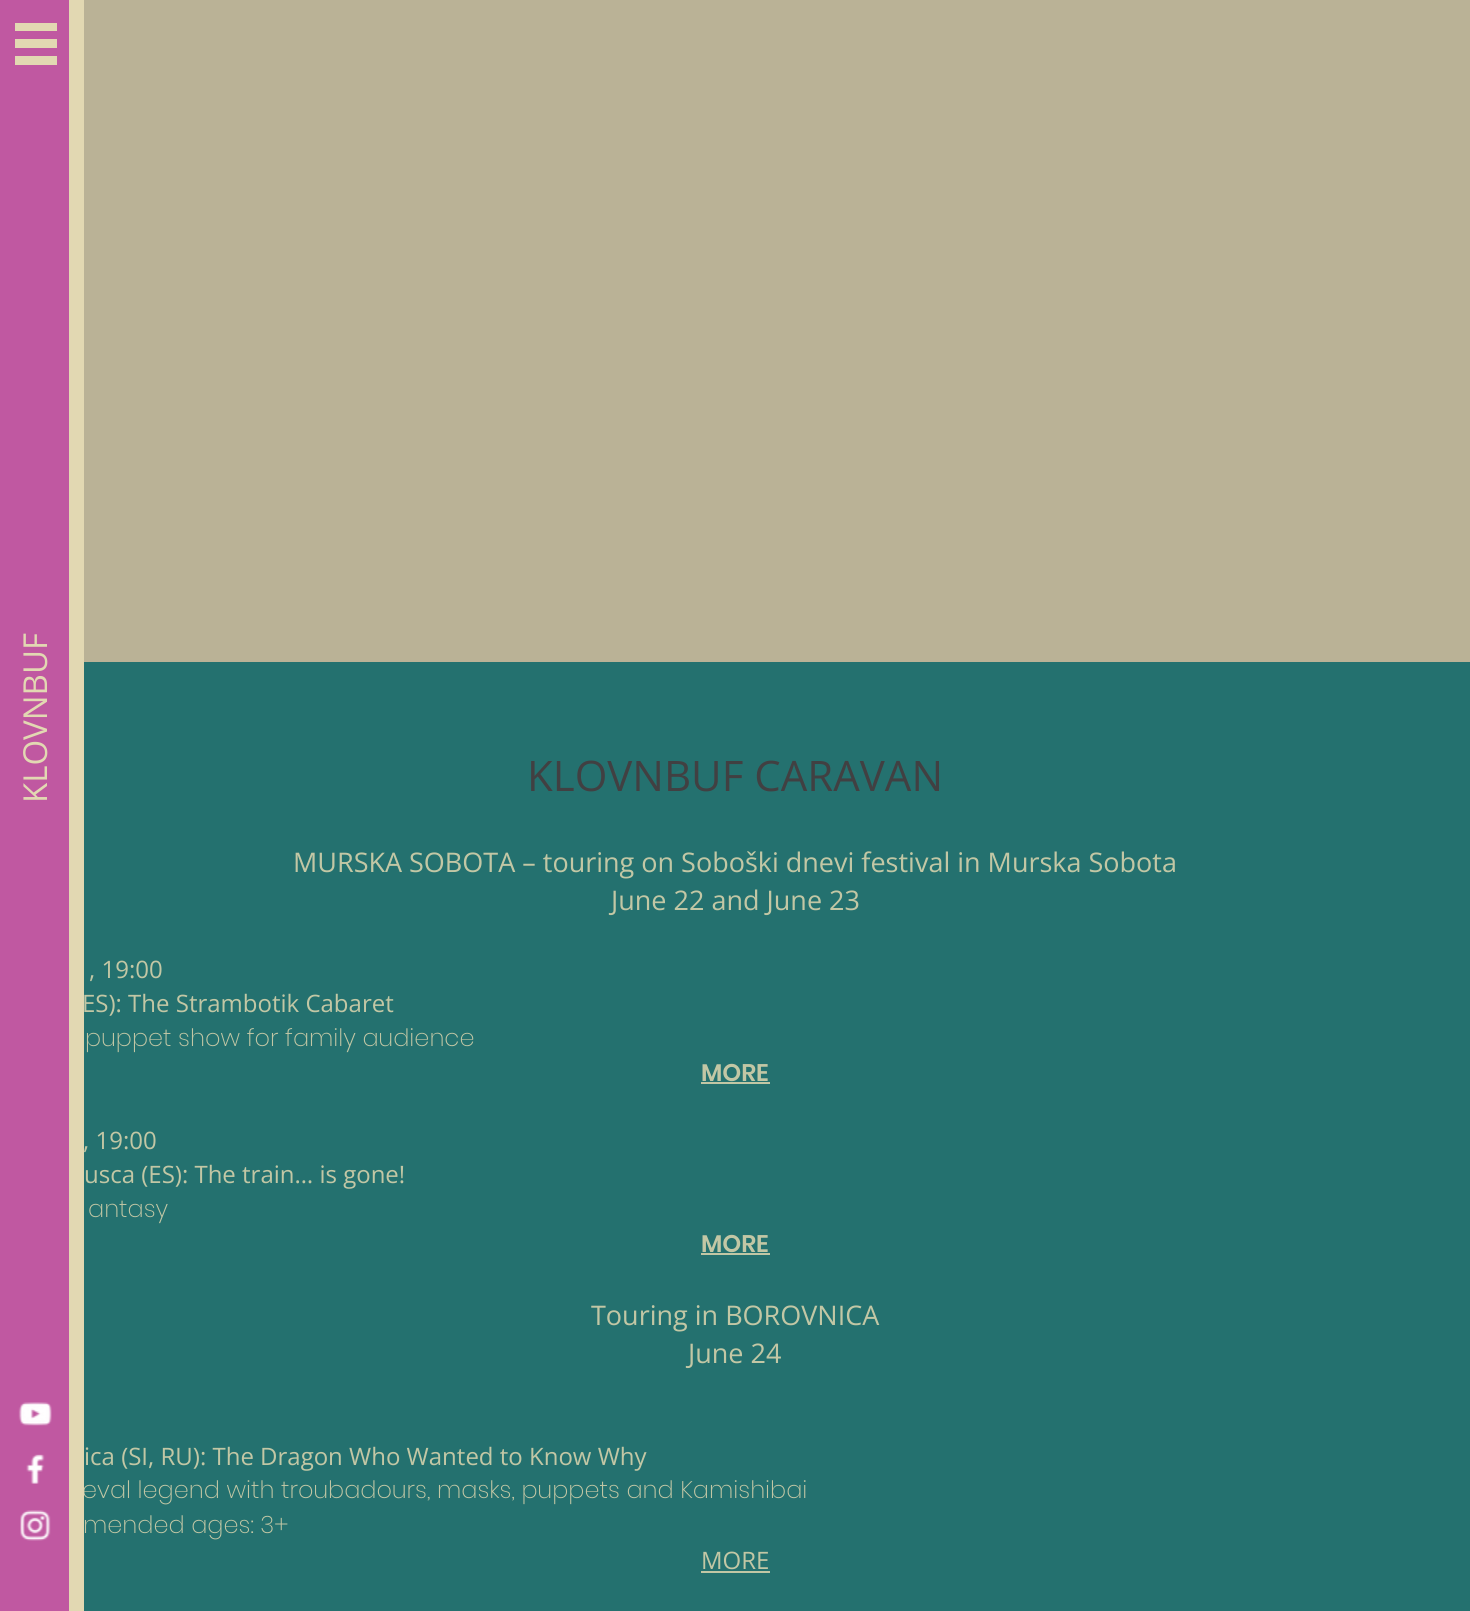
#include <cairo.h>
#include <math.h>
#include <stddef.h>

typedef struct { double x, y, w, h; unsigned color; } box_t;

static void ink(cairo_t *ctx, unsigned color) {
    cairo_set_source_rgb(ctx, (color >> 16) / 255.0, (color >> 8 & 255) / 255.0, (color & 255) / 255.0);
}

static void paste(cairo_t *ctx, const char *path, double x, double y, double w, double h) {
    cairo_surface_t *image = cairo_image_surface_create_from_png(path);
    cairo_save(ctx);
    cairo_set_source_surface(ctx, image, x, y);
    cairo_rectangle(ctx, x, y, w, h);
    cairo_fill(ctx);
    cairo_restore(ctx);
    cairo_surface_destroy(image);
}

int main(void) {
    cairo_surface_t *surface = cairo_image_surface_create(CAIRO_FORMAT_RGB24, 1470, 1611);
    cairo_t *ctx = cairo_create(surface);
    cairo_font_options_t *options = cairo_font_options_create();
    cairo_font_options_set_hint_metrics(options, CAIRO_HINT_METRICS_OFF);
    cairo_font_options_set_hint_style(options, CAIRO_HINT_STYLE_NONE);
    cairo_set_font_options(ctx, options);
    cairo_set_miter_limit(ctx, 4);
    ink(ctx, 0xBAB296);
    cairo_paint(ctx);
    {
        static const box_t items[] = {
            {0, 0, 69, 1611, 0xC058A1},
            {15, 23, 42, 8, 0xE2D8B2},
            {15, 39, 42, 9, 0xE2D8B2},
            {15, 56, 42, 9, 0xE2D8B2},
            {84, 662, 1386, 949, 0x24716F},
        };
        for (size_t i = 0; i < sizeof items / sizeof *items; i++) {
            ink(ctx, items[i].color);
            cairo_rectangle(ctx, items[i].x, items[i].y, items[i].w, items[i].h);
            cairo_fill(ctx);
        }
    }
    cairo_select_font_face(ctx, "Poppins ExtraLight", CAIRO_FONT_SLANT_NORMAL, CAIRO_FONT_WEIGHT_NORMAL);
    cairo_set_font_size(ctx, 24);
    ink(ctx, 0xC2C7A5);
    cairo_move_to(ctx, 82, 1498);
    cairo_show_text(ctx, "eval legend with troubadours, masks, puppets and Kamishibai");
    ink(ctx, 0xE2D8B2);
    cairo_rectangle(ctx, 69, 0, 15, 1611);
    cairo_fill(ctx);
    cairo_select_font_face(ctx, "Open Sans", CAIRO_FONT_SLANT_NORMAL, CAIRO_FONT_WEIGHT_NORMAL);
    cairo_set_font_size(ctx, 33);
    cairo_save(ctx);
    cairo_translate(ctx, 47, 803);
    cairo_rotate(ctx, -90 * M_PI / 180);
    cairo_move_to(ctx, 0, 0);
    cairo_show_text(ctx, "KLOVNBUF");
    cairo_restore(ctx);
    paste(ctx, "media/1.png", 18, 1402, 34, 24);
    paste(ctx, "media/2.png", 26, 1454, 19, 30);
    paste(ctx, "media/3.png", 20, 1510, 31, 31);
    cairo_set_font_size(ctx, 42);
    ink(ctx, 0x414042);
    cairo_move_to(ctx, 527, 791);
    cairo_show_text(ctx, "KLOVNBUF CARAVAN");
    cairo_set_font_size(ctx, 27);
    ink(ctx, 0xC2C7A5);
    cairo_move_to(ctx, 293, 872);
    cairo_show_text(ctx, "MURSKA SOBOTA – touring on Soboški dnevi festival in Murska Sobota");
    cairo_move_to(ctx, 611, 910);
    cairo_show_text(ctx, "June 22 and June 23");
    cairo_set_font_size(ctx, 24);
    cairo_move_to(ctx, 89, 978);
    cairo_show_text(ctx, ", 19:00");
    cairo_move_to(ctx, 82, 1012);
    cairo_show_text(ctx, "ES): The Strambotik Cabaret");
    cairo_select_font_face(ctx, "Poppins ExtraLight", CAIRO_FONT_SLANT_NORMAL, CAIRO_FONT_WEIGHT_NORMAL);
    cairo_move_to(ctx, 85, 1046);
    cairo_show_text(ctx, "puppet show for family audience");
    cairo_select_font_face(ctx, "Poppins SemiBold", CAIRO_FONT_SLANT_NORMAL, CAIRO_FONT_WEIGHT_NORMAL);
    cairo_move_to(ctx, 701, 1081);
    cairo_show_text(ctx, "MORE");
    cairo_rectangle(ctx, 701, 1082, 69, 2);
    cairo_fill(ctx);
    cairo_select_font_face(ctx, "Open Sans", CAIRO_FONT_SLANT_NORMAL, CAIRO_FONT_WEIGHT_NORMAL);
    cairo_move_to(ctx, 83, 1149);
    cairo_show_text(ctx, ", 19:00");
    cairo_move_to(ctx, 84, 1183);
    cairo_show_text(ctx, "usca (ES): The train… is gone!");
    cairo_select_font_face(ctx, "Poppins ExtraLight", CAIRO_FONT_SLANT_NORMAL, CAIRO_FONT_WEIGHT_NORMAL);
    cairo_move_to(ctx, 88, 1217);
    cairo_show_text(ctx, "antasy");
    cairo_select_font_face(ctx, "Poppins SemiBold", CAIRO_FONT_SLANT_NORMAL, CAIRO_FONT_WEIGHT_NORMAL);
    cairo_move_to(ctx, 701, 1252);
    cairo_show_text(ctx, "MORE");
    cairo_rectangle(ctx, 701, 1253, 69, 2);
    cairo_fill(ctx);
    cairo_select_font_face(ctx, "Open Sans", CAIRO_FONT_SLANT_NORMAL, CAIRO_FONT_WEIGHT_NORMAL);
    cairo_set_font_size(ctx, 27);
    cairo_move_to(ctx, 591, 1325);
    cairo_show_text(ctx, "Touring in BOROVNICA");
    cairo_move_to(ctx, 688, 1363);
    cairo_show_text(ctx, "June 24");
    cairo_set_font_size(ctx, 24);
    cairo_move_to(ctx, 84, 1465);
    cairo_show_text(ctx, "ica (SI, RU): The Dragon Who Wanted to Know Why");
    cairo_select_font_face(ctx, "Poppins ExtraLight", CAIRO_FONT_SLANT_NORMAL, CAIRO_FONT_WEIGHT_NORMAL);
    cairo_move_to(ctx, 83, 1533);
    cairo_show_text(ctx, "mended ages: 3+");
    cairo_select_font_face(ctx, "Open Sans", CAIRO_FONT_SLANT_NORMAL, CAIRO_FONT_WEIGHT_NORMAL);
    cairo_move_to(ctx, 701, 1569);
    cairo_show_text(ctx, "MORE");
    cairo_rectangle(ctx, 701, 1571, 69, 2);
    cairo_fill(ctx);
    cairo_surface_write_to_png(surface, "image.png");
    cairo_font_options_destroy(options);
    cairo_destroy(ctx);
    cairo_surface_destroy(surface);
    return 0;
}
